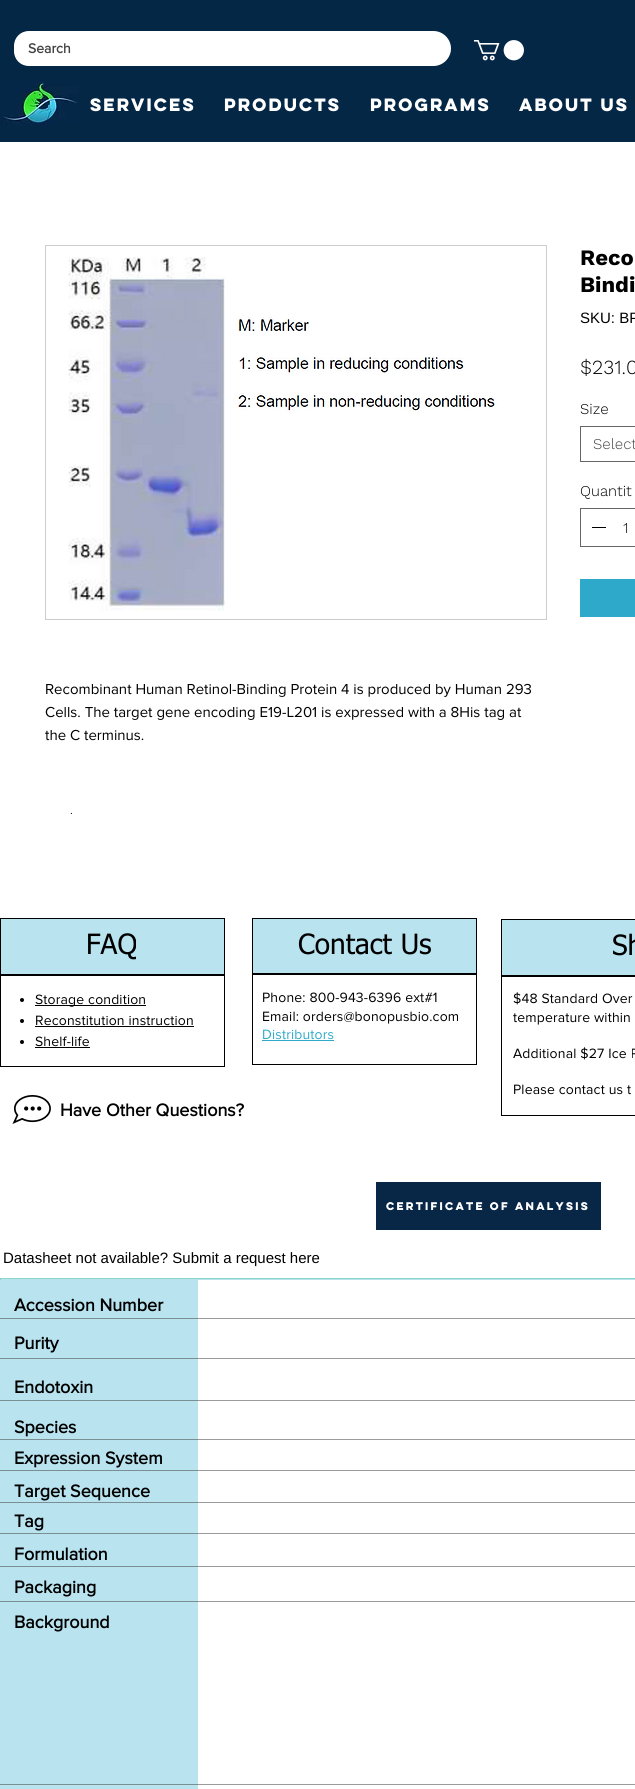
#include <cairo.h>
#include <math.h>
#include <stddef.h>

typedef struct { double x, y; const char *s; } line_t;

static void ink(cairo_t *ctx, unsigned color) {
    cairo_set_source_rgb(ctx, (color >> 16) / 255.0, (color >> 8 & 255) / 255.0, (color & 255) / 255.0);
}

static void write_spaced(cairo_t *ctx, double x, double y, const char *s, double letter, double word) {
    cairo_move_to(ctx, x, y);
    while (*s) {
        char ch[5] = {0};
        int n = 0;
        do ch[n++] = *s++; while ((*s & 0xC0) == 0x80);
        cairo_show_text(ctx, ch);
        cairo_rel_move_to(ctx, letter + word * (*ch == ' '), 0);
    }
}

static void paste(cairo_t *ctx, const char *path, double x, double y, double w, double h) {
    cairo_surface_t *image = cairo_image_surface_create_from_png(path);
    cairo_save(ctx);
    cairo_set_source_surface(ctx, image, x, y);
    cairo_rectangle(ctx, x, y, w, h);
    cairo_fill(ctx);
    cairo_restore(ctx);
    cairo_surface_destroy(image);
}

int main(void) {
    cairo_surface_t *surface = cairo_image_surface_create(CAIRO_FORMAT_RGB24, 635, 1789);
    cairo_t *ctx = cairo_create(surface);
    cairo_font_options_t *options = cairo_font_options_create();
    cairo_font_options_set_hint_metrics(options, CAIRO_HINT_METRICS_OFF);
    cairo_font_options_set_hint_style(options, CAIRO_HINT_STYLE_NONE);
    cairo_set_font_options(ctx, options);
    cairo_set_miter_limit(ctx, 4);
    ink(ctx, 0xFFFFFF);
    cairo_paint(ctx);
    ink(ctx, 0x042746);
    cairo_rectangle(ctx, 0, 0, 635, 142);
    cairo_fill(ctx);
    ink(ctx, 0xFFFFFF);
    cairo_new_path(ctx);
    cairo_move_to(ctx, 29, 31);
    cairo_line_to(ctx, 433.5, 31);
    cairo_curve_to(ctx, 443, 31, 451, 39, 451, 48.5);
    cairo_curve_to(ctx, 451, 58, 443, 66, 433.5, 66);
    cairo_line_to(ctx, 29, 66);
    cairo_curve_to(ctx, 20.5, 66, 14, 59.5, 14, 51);
    cairo_line_to(ctx, 14, 46);
    cairo_curve_to(ctx, 14, 37.5, 20.5, 31, 29, 31);
    cairo_close_path(ctx);
    cairo_fill(ctx);
    cairo_select_font_face(ctx, "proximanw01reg", CAIRO_FONT_SLANT_NORMAL, CAIRO_FONT_WEIGHT_BOLD);
    cairo_set_font_size(ctx, 14);
    ink(ctx, 0x444444);
    cairo_move_to(ctx, 28, 53);
    cairo_show_text(ctx, "Search");
    paste(ctx, "media/1.png", 474, 40, 50, 21);
    paste(ctx, "media/2.png", 2, 79, 76, 46);
    cairo_select_font_face(ctx, "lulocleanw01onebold", CAIRO_FONT_SLANT_NORMAL, CAIRO_FONT_WEIGHT_BOLD);
    cairo_set_font_size(ctx, 16);
    ink(ctx, 0xFFFFFF);
    {
        static const line_t items[] = {
            {90, 111, "Services"},
            {224, 111, "Products"},
            {370, 111, "Programs"},
            {519, 111, "About Us"},
        };
        for (size_t i = 0; i < sizeof items / sizeof *items; i++) {
            write_spaced(ctx, items[i].x, items[i].y, items[i].s, -1.5, 0);
        }
    }
    cairo_select_font_face(ctx, "Work Sans", CAIRO_FONT_SLANT_NORMAL, CAIRO_FONT_WEIGHT_BOLD);
    cairo_set_font_size(ctx, 22);
    ink(ctx, 0x000000);
    cairo_move_to(ctx, 580, 265);
    cairo_show_text(ctx, "Reco");
    cairo_move_to(ctx, 580, 292);
    cairo_show_text(ctx, "Bindi");
    cairo_select_font_face(ctx, "Liberation Sans", CAIRO_FONT_SLANT_NORMAL, CAIRO_FONT_WEIGHT_NORMAL);
    cairo_set_font_size(ctx, 15);
    cairo_move_to(ctx, 580, 323);
    cairo_show_text(ctx, "SKU: BP");
    cairo_select_font_face(ctx, "Work Sans Light", CAIRO_FONT_SLANT_NORMAL, CAIRO_FONT_WEIGHT_NORMAL);
    cairo_set_font_size(ctx, 20);
    cairo_move_to(ctx, 580, 374);
    cairo_show_text(ctx, "$231.0");
    cairo_set_font_size(ctx, 15);
    cairo_move_to(ctx, 580, 414);
    cairo_show_text(ctx, "Size");
    cairo_rectangle(ctx, 580.5, 426.5, 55, 35);
    ink(ctx, 0x666666);
    cairo_set_line_width(ctx, 1);
    cairo_stroke(ctx);
    ink(ctx, 0x444444);
    cairo_move_to(ctx, 593, 449);
    cairo_show_text(ctx, "Select");
    ink(ctx, 0x000000);
    cairo_move_to(ctx, 580, 496);
    cairo_show_text(ctx, "Quantit");
    cairo_rectangle(ctx, 580.5, 508.5, 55, 38);
    ink(ctx, 0x666666);
    cairo_stroke(ctx);
    ink(ctx, 0x000000);
    cairo_rectangle(ctx, 592, 527, 14, 1);
    cairo_fill(ctx);
    cairo_move_to(ctx, 623, 533);
    cairo_show_text(ctx, "1");
    ink(ctx, 0x2EA9C9);
    cairo_rectangle(ctx, 580, 579, 55, 38);
    cairo_fill(ctx);
    cairo_rectangle(ctx, 45.5, 245.5, 501, 374);
    ink(ctx, 0xCCCCCC);
    cairo_stroke(ctx);
    paste(ctx, "media/3.png", 68, 257, 429, 354);
    cairo_select_font_face(ctx, "proximanw01reg", CAIRO_FONT_SLANT_NORMAL, CAIRO_FONT_WEIGHT_NORMAL);
    ink(ctx, 0x000000);
    {
        static const line_t items[] = {
            {45, 694, "Recombinant Human Retinol-Binding Protein 4 is produced by Human 293"},
            {45, 717, "Cells. The target gene encoding E19-L201 is expressed with a 8His tag at"},
            {45, 740, "the C terminus."},
        };
        for (size_t i = 0; i < sizeof items / sizeof *items; i++) {
            cairo_move_to(ctx, items[i].x, items[i].y);
            cairo_show_text(ctx, items[i].s);
        }
    }
    cairo_select_font_face(ctx, "Liberation Sans", CAIRO_FONT_SLANT_NORMAL, CAIRO_FONT_WEIGHT_NORMAL);
    cairo_set_font_size(ctx, 10);
    cairo_move_to(ctx, 70, 814);
    cairo_show_text(ctx, ".");
    ink(ctx, 0xB8E3EF);
    cairo_rectangle(ctx, 0.5, 918.5, 224, 56);
    cairo_fill_preserve(ctx);
    ink(ctx, 0x000000);
    cairo_stroke(ctx);
    cairo_select_font_face(ctx, "tahoma", CAIRO_FONT_SLANT_NORMAL, CAIRO_FONT_WEIGHT_NORMAL);
    cairo_set_font_size(ctx, 28);
    cairo_move_to(ctx, 86, 954);
    cairo_show_text(ctx, "FAQ");
    cairo_rectangle(ctx, 0.5, 975.5, 224, 91);
    cairo_stroke(ctx);
    cairo_arc(ctx, 22, 1000, 2, 0, 2 * M_PI);
    cairo_fill(ctx);
    cairo_rectangle(ctx, 35, 1005, 111, 1);
    cairo_fill(ctx);
    cairo_select_font_face(ctx, "proximanw01reg", CAIRO_FONT_SLANT_NORMAL, CAIRO_FONT_WEIGHT_NORMAL);
    cairo_set_font_size(ctx, 14);
    write_spaced(ctx, 35, 1004, "Storage condition", 0.15, 0);
    cairo_new_path(ctx);
    cairo_arc(ctx, 22, 1021, 2, 0, 2 * M_PI);
    cairo_fill(ctx);
    write_spaced(ctx, 35, 1025, "Reconstitution instruction", 0.15, 0);
    cairo_rectangle(ctx, 35, 1026, 159, 1);
    cairo_fill(ctx);
    cairo_arc(ctx, 22, 1042, 2, 0, 2 * M_PI);
    cairo_fill(ctx);
    write_spaced(ctx, 35, 1046, "Shelf-life", 0.15, 0);
    cairo_rectangle(ctx, 35, 1047, 55, 1);
    cairo_fill(ctx);
    ink(ctx, 0xB8E3EF);
    cairo_rectangle(ctx, 252.5, 918.5, 224, 55);
    cairo_fill_preserve(ctx);
    ink(ctx, 0x000000);
    cairo_stroke(ctx);
    cairo_select_font_face(ctx, "tahoma", CAIRO_FONT_SLANT_NORMAL, CAIRO_FONT_WEIGHT_NORMAL);
    cairo_set_font_size(ctx, 28);
    cairo_move_to(ctx, 298, 954);
    cairo_show_text(ctx, "Contact Us");
    cairo_rectangle(ctx, 252.5, 974.5, 224, 90);
    cairo_stroke(ctx);
    cairo_select_font_face(ctx, "proximanw01reg", CAIRO_FONT_SLANT_NORMAL, CAIRO_FONT_WEIGHT_NORMAL);
    cairo_set_font_size(ctx, 14);
    write_spaced(ctx, 262, 1002, "Phone: 800-943-6396 ext#1", 0.15, 0);
    write_spaced(ctx, 262, 1021, "Email: orders@bonopusbio.com", 0.15, 0);
    ink(ctx, 0x2EA9C9);
    write_spaced(ctx, 262, 1039, "Distributors", 0.15, 0);
    cairo_rectangle(ctx, 262, 1040, 72, 1);
    cairo_fill(ctx);
    ink(ctx, 0xB8E3EF);
    cairo_rectangle(ctx, 501.5, 919.5, 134, 56);
    cairo_fill_preserve(ctx);
    ink(ctx, 0x000000);
    cairo_stroke(ctx);
    cairo_select_font_face(ctx, "tahoma", CAIRO_FONT_SLANT_NORMAL, CAIRO_FONT_WEIGHT_NORMAL);
    cairo_set_font_size(ctx, 28);
    cairo_move_to(ctx, 612, 955);
    cairo_show_text(ctx, "Sh");
    cairo_rectangle(ctx, 501.5, 976.5, 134, 139);
    cairo_stroke(ctx);
    cairo_select_font_face(ctx, "proximanw01reg", CAIRO_FONT_SLANT_NORMAL, CAIRO_FONT_WEIGHT_NORMAL);
    cairo_set_font_size(ctx, 14);
    {
        static const line_t items[] = {
            {513, 1003, "$48 Standard Over"},
            {513, 1022, "temperature within"},
            {513, 1058, "Additional $27 Ice P"},
            {513, 1094, "Please contact us t"},
        };
        for (size_t i = 0; i < sizeof items / sizeof *items; i++) {
            write_spaced(ctx, items[i].x, items[i].y, items[i].s, 0.15, 0);
        }
    }
    paste(ctx, "media/4.png", 12, 1095, 39, 29);
    cairo_select_font_face(ctx, "proximanw01reg", CAIRO_FONT_SLANT_NORMAL, CAIRO_FONT_WEIGHT_BOLD);
    cairo_set_font_size(ctx, 18);
    cairo_move_to(ctx, 60, 1116);
    cairo_show_text(ctx, "Have Other Questions?");
    ink(ctx, 0x082746);
    cairo_rectangle(ctx, 376, 1182, 225, 48);
    cairo_fill(ctx);
    cairo_select_font_face(ctx, "lulocleanw01onebold", CAIRO_FONT_SLANT_NORMAL, CAIRO_FONT_WEIGHT_BOLD);
    cairo_set_font_size(ctx, 10);
    ink(ctx, 0xFFFFFF);
    cairo_move_to(ctx, 386, 1210);
    cairo_show_text(ctx, "Certificate of Analysis");
    cairo_select_font_face(ctx, "Liberation Sans", CAIRO_FONT_SLANT_NORMAL, CAIRO_FONT_WEIGHT_NORMAL);
    cairo_set_font_size(ctx, 15);
    ink(ctx, 0x000000);
    cairo_move_to(ctx, 3, 1263);
    cairo_show_text(ctx, "Datasheet not available? Submit a request here");
    ink(ctx, 0xB8E3EF);
    cairo_rectangle(ctx, 1, 1279, 634, 1);
    cairo_fill(ctx);
    cairo_rectangle(ctx, 0.5, 1278.5, 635, 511);
    ink(ctx, 0x8AD5CA);
    cairo_stroke(ctx);
    ink(ctx, 0xB8E3EF);
    cairo_rectangle(ctx, 0, 1280, 198, 509);
    cairo_fill(ctx);
    cairo_select_font_face(ctx, "proximanw01reg", CAIRO_FONT_SLANT_NORMAL, CAIRO_FONT_WEIGHT_BOLD);
    cairo_set_font_size(ctx, 18);
    ink(ctx, 0x000000);
    cairo_move_to(ctx, 14, 1311);
    cairo_show_text(ctx, "Accession Number");
    cairo_set_source_rgba(ctx, 0.259, 0.259, 0.259, 0.53);
    cairo_rectangle(ctx, 0, 1318, 635, 1);
    cairo_fill(ctx);
    ink(ctx, 0x000000);
    cairo_move_to(ctx, 14, 1349);
    cairo_show_text(ctx, "Purity");
    cairo_set_source_rgba(ctx, 0.259, 0.259, 0.259, 0.53);
    cairo_rectangle(ctx, 0, 1358, 635, 1);
    cairo_fill(ctx);
    ink(ctx, 0x000000);
    cairo_move_to(ctx, 14, 1393);
    cairo_show_text(ctx, "Endotoxin");
    cairo_set_source_rgba(ctx, 0.259, 0.259, 0.259, 0.53);
    cairo_rectangle(ctx, 0, 1400, 635, 1);
    cairo_fill(ctx);
    ink(ctx, 0x000000);
    cairo_move_to(ctx, 14, 1433);
    cairo_show_text(ctx, "Species");
    cairo_set_source_rgba(ctx, 0.259, 0.259, 0.259, 0.53);
    cairo_rectangle(ctx, 0, 1439, 635, 1);
    cairo_fill(ctx);
    ink(ctx, 0x000000);
    cairo_move_to(ctx, 14, 1464);
    cairo_show_text(ctx, "Expression System");
    cairo_set_source_rgba(ctx, 0.259, 0.259, 0.259, 0.53);
    cairo_rectangle(ctx, 0, 1470, 635, 1);
    cairo_fill(ctx);
    ink(ctx, 0x000000);
    cairo_move_to(ctx, 14, 1497);
    cairo_show_text(ctx, "Target Sequence");
    cairo_set_source_rgba(ctx, 0.259, 0.259, 0.259, 0.53);
    cairo_rectangle(ctx, 0, 1502, 635, 1);
    cairo_fill(ctx);
    ink(ctx, 0x000000);
    cairo_move_to(ctx, 14, 1527);
    cairo_show_text(ctx, "Tag");
    cairo_set_source_rgba(ctx, 0.259, 0.259, 0.259, 0.53);
    cairo_rectangle(ctx, 0, 1533, 635, 1);
    cairo_fill(ctx);
    ink(ctx, 0x000000);
    cairo_move_to(ctx, 14, 1560);
    cairo_show_text(ctx, "Formulation");
    cairo_set_source_rgba(ctx, 0.259, 0.259, 0.259, 0.53);
    cairo_rectangle(ctx, 0, 1566, 635, 1);
    cairo_fill(ctx);
    ink(ctx, 0x000000);
    cairo_move_to(ctx, 14, 1593);
    cairo_show_text(ctx, "Packaging");
    cairo_set_source_rgba(ctx, 0.259, 0.259, 0.259, 0.53);
    cairo_rectangle(ctx, 0, 1601, 635, 1);
    cairo_fill(ctx);
    ink(ctx, 0x000000);
    cairo_move_to(ctx, 14, 1628);
    cairo_show_text(ctx, "Background");
    cairo_set_source_rgba(ctx, 0.259, 0.259, 0.259, 0.53);
    cairo_rectangle(ctx, 0, 1784, 635, 1);
    cairo_fill(ctx);
    cairo_surface_write_to_png(surface, "image.png");
    cairo_font_options_destroy(options);
    cairo_destroy(ctx);
    cairo_surface_destroy(surface);
    return 0;
}
